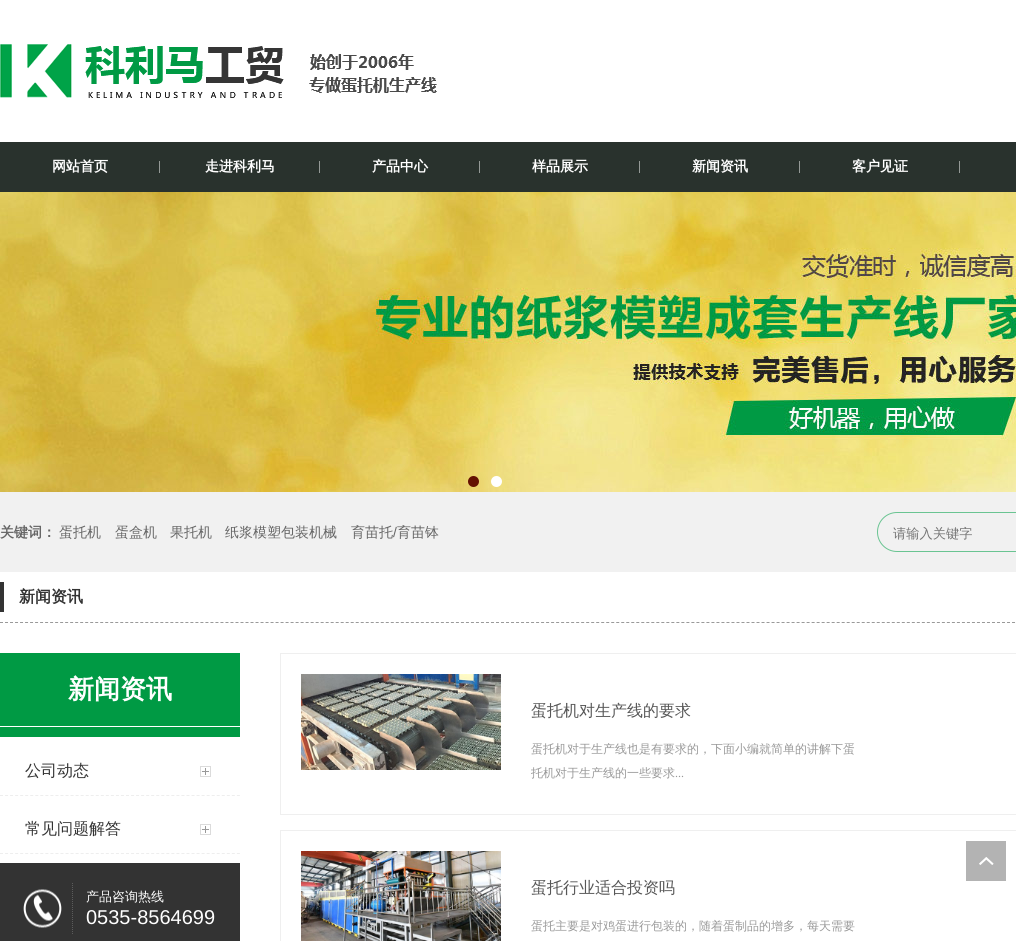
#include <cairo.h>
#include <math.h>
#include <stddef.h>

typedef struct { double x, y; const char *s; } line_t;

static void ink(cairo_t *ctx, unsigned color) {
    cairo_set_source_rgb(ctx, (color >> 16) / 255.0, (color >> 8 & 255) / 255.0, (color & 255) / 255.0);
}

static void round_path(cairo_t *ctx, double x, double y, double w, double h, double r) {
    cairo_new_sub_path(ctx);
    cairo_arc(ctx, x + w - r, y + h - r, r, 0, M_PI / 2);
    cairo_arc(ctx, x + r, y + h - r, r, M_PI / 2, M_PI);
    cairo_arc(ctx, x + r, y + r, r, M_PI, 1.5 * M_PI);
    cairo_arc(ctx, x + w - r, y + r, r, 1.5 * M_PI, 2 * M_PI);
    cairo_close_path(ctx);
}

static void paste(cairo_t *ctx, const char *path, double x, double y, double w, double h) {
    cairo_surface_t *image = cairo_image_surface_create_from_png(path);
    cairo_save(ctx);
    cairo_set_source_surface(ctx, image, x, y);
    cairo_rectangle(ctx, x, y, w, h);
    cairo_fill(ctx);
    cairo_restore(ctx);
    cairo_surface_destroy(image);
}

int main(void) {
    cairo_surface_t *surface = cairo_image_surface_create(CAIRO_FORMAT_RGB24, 1016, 941);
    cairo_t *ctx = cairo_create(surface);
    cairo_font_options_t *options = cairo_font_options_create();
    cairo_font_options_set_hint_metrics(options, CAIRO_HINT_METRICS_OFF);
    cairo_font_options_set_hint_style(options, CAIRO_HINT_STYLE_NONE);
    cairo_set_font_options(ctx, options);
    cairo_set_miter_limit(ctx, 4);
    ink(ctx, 0xFFFFFF);
    cairo_paint(ctx);
    paste(ctx, "media/1.png", 0, 44, 437, 54);
    ink(ctx, 0x29322D);
    cairo_rectangle(ctx, 0, 142, 1016, 50);
    cairo_fill(ctx);
    cairo_select_font_face(ctx, "WenQuanYi Zen Hei", CAIRO_FONT_SLANT_NORMAL, CAIRO_FONT_WEIGHT_BOLD);
    cairo_set_font_size(ctx, 14);
    ink(ctx, 0xFFFFFF);
    cairo_move_to(ctx, 52, 171);
    cairo_show_text(ctx, "网站首页");
    ink(ctx, 0x949996);
    cairo_rectangle(ctx, 159, 161, 1, 12);
    cairo_fill(ctx);
    ink(ctx, 0xFFFFFF);
    cairo_move_to(ctx, 205, 171);
    cairo_show_text(ctx, "走进科利马");
    ink(ctx, 0x949996);
    cairo_rectangle(ctx, 319, 161, 1, 12);
    cairo_fill(ctx);
    ink(ctx, 0xFFFFFF);
    cairo_move_to(ctx, 372, 171);
    cairo_show_text(ctx, "产品中心");
    ink(ctx, 0x949996);
    cairo_rectangle(ctx, 479, 161, 1, 12);
    cairo_fill(ctx);
    ink(ctx, 0xFFFFFF);
    cairo_move_to(ctx, 532, 171);
    cairo_show_text(ctx, "样品展示");
    ink(ctx, 0x949996);
    cairo_rectangle(ctx, 639, 161, 1, 12);
    cairo_fill(ctx);
    ink(ctx, 0xFFFFFF);
    cairo_move_to(ctx, 692, 171);
    cairo_show_text(ctx, "新闻资讯");
    ink(ctx, 0x949996);
    cairo_rectangle(ctx, 799, 161, 1, 12);
    cairo_fill(ctx);
    ink(ctx, 0xFFFFFF);
    cairo_move_to(ctx, 852, 171);
    cairo_show_text(ctx, "客户见证");
    ink(ctx, 0x949996);
    cairo_rectangle(ctx, 959, 161, 1, 12);
    cairo_fill(ctx);
    paste(ctx, "media/2.png", 0, 192, 1016, 300);
    ink(ctx, 0x641102);
    cairo_arc(ctx, 473.5, 481.5, 5.5, 0, 2 * M_PI);
    cairo_fill(ctx);
    ink(ctx, 0xFFFFFF);
    cairo_arc(ctx, 496.5, 481.5, 5.5, 0, 2 * M_PI);
    cairo_fill(ctx);
    ink(ctx, 0xF1F1F1);
    cairo_rectangle(ctx, 0, 492, 1016, 80);
    cairo_fill(ctx);
    ink(ctx, 0x666666);
    cairo_move_to(ctx, 0, 537);
    cairo_show_text(ctx, "关键词：");
    cairo_select_font_face(ctx, "WenQuanYi Zen Hei Medium", CAIRO_FONT_SLANT_NORMAL, CAIRO_FONT_WEIGHT_NORMAL);
    {
        static const line_t items[] = {
            {59, 537, "蛋托机"},
            {115, 537, "蛋盒机"},
            {170, 537, "果托机"},
            {225, 537, "纸浆模塑包装机械"},
            {351, 537, "育苗托"},
        };
        for (size_t i = 0; i < sizeof items / sizeof *items; i++) {
            cairo_move_to(ctx, items[i].x, items[i].y);
            cairo_show_text(ctx, items[i].s);
        }
    }
    cairo_select_font_face(ctx, "Liberation Sans", CAIRO_FONT_SLANT_NORMAL, CAIRO_FONT_WEIGHT_NORMAL);
    cairo_move_to(ctx, 393, 537);
    cairo_show_text(ctx, "/");
    cairo_select_font_face(ctx, "WenQuanYi Zen Hei Medium", CAIRO_FONT_SLANT_NORMAL, CAIRO_FONT_WEIGHT_NORMAL);
    cairo_move_to(ctx, 397, 537);
    cairo_show_text(ctx, "育苗钵");
    round_path(ctx, 877.5, 512.5, 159, 39, 19.5);
    ink(ctx, 0x6AC492);
    cairo_set_line_width(ctx, 1);
    cairo_stroke(ctx);
    cairo_set_font_size(ctx, 13.25);
    ink(ctx, 0x757575);
    cairo_move_to(ctx, 893, 538);
    cairo_show_text(ctx, "请输入关键字");
    cairo_new_path(ctx);
    cairo_move_to(ctx, 0, 622.5);
    cairo_line_to(ctx, 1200, 622.5);
    ink(ctx, 0x999999);
    cairo_set_dash(ctx, (double[]){3, 2.01}, 2, 0);
    cairo_stroke(ctx);
    ink(ctx, 0x333333);
    cairo_rectangle(ctx, 0, 582, 4, 30);
    cairo_fill(ctx);
    cairo_select_font_face(ctx, "WenQuanYi Zen Hei", CAIRO_FONT_SLANT_NORMAL, CAIRO_FONT_WEIGHT_BOLD);
    cairo_set_font_size(ctx, 16);
    cairo_move_to(ctx, 19, 602);
    cairo_show_text(ctx, "新闻资讯");
    ink(ctx, 0x009A44);
    cairo_rectangle(ctx, 0, 653, 240, 84);
    cairo_fill(ctx);
    ink(ctx, 0xFFFFFF);
    cairo_rectangle(ctx, 0, 726, 240, 1);
    cairo_fill(ctx);
    cairo_set_font_size(ctx, 26);
    cairo_move_to(ctx, 68, 698);
    cairo_show_text(ctx, "新闻资讯");
    paste(ctx, "media/3.png", 200, 766, 11, 11);
    cairo_new_path(ctx);
    cairo_move_to(ctx, 0, 795.5);
    cairo_line_to(ctx, 240, 795.5);
    ink(ctx, 0xEEEEEE);
    cairo_set_dash(ctx, (double[]){3, 2.04}, 2, 0);
    cairo_stroke(ctx);
    cairo_select_font_face(ctx, "WenQuanYi Zen Hei Medium", CAIRO_FONT_SLANT_NORMAL, CAIRO_FONT_WEIGHT_NORMAL);
    cairo_set_font_size(ctx, 16);
    ink(ctx, 0x333333);
    cairo_move_to(ctx, 25, 776);
    cairo_show_text(ctx, "公司动态");
    paste(ctx, "media/3.png", 200, 824, 11, 11);
    cairo_new_path(ctx);
    cairo_move_to(ctx, 0, 853.5);
    cairo_line_to(ctx, 240, 853.5);
    ink(ctx, 0xEEEEEE);
    cairo_stroke(ctx);
    ink(ctx, 0x333333);
    cairo_move_to(ctx, 25, 834);
    cairo_show_text(ctx, "常见问题解答");
    cairo_rectangle(ctx, 0, 863, 240, 78);
    cairo_fill(ctx);
    paste(ctx, "media/4.png", 23, 889, 39, 39);
    cairo_new_path(ctx);
    cairo_move_to(ctx, 72.5, 883);
    cairo_line_to(ctx, 72.5, 934);
    ink(ctx, 0x5C5C5C);
    cairo_set_dash(ctx, (double[]){1, 1}, 2, 0);
    cairo_stroke(ctx);
    cairo_set_font_size(ctx, 13);
    ink(ctx, 0xFFFFFF);
    cairo_move_to(ctx, 86, 901);
    cairo_show_text(ctx, "产品咨询热线");
    cairo_select_font_face(ctx, "Liberation Sans", CAIRO_FONT_SLANT_NORMAL, CAIRO_FONT_WEIGHT_NORMAL);
    cairo_set_font_size(ctx, 20);
    cairo_move_to(ctx, 86, 924);
    cairo_show_text(ctx, "0535-8564699");
    cairo_rectangle(ctx, 280.5, 653.5, 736, 161);
    ink(ctx, 0xEFEFEF);
    cairo_set_dash(ctx, NULL, 0, 0);
    cairo_stroke(ctx);
    paste(ctx, "media/5.png", 301, 674, 200, 96);
    cairo_select_font_face(ctx, "WenQuanYi Zen Hei Medium", CAIRO_FONT_SLANT_NORMAL, CAIRO_FONT_WEIGHT_NORMAL);
    cairo_set_font_size(ctx, 16);
    ink(ctx, 0x575757);
    cairo_move_to(ctx, 531, 716);
    cairo_show_text(ctx, "蛋托机对生产线的要求");
    cairo_set_font_size(ctx, 12);
    ink(ctx, 0x999999);
    cairo_move_to(ctx, 531, 753);
    cairo_show_text(ctx, "蛋托机对于生产线也是有要求的，下面小编就简单的讲解下蛋");
    cairo_move_to(ctx, 531, 777);
    cairo_show_text(ctx, "托机对于生产线的一些要求");
    cairo_select_font_face(ctx, "Liberation Serif", CAIRO_FONT_SLANT_NORMAL, CAIRO_FONT_WEIGHT_NORMAL);
    cairo_move_to(ctx, 675, 777);
    cairo_show_text(ctx, "...");
    cairo_rectangle(ctx, 280.5, 830.5, 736, 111);
    ink(ctx, 0xEFEFEF);
    cairo_stroke(ctx);
    paste(ctx, "media/6.png", 301, 851, 200, 90);
    cairo_select_font_face(ctx, "WenQuanYi Zen Hei Medium", CAIRO_FONT_SLANT_NORMAL, CAIRO_FONT_WEIGHT_NORMAL);
    cairo_set_font_size(ctx, 16);
    ink(ctx, 0x575757);
    cairo_move_to(ctx, 531, 893);
    cairo_show_text(ctx, "蛋托行业适合投资吗");
    cairo_set_font_size(ctx, 12);
    ink(ctx, 0x999999);
    cairo_move_to(ctx, 531, 930);
    cairo_show_text(ctx, "蛋托主要是对鸡蛋进行包装的，随着蛋制品的增多，每天需要");
    ink(ctx, 0xB3B3B3);
    cairo_rectangle(ctx, 966, 841, 40, 40);
    cairo_fill(ctx);
    paste(ctx, "media/7.png", 979, 857, 15, 8);
    cairo_surface_write_to_png(surface, "image.png");
    cairo_font_options_destroy(options);
    cairo_destroy(ctx);
    cairo_surface_destroy(surface);
    return 0;
}
